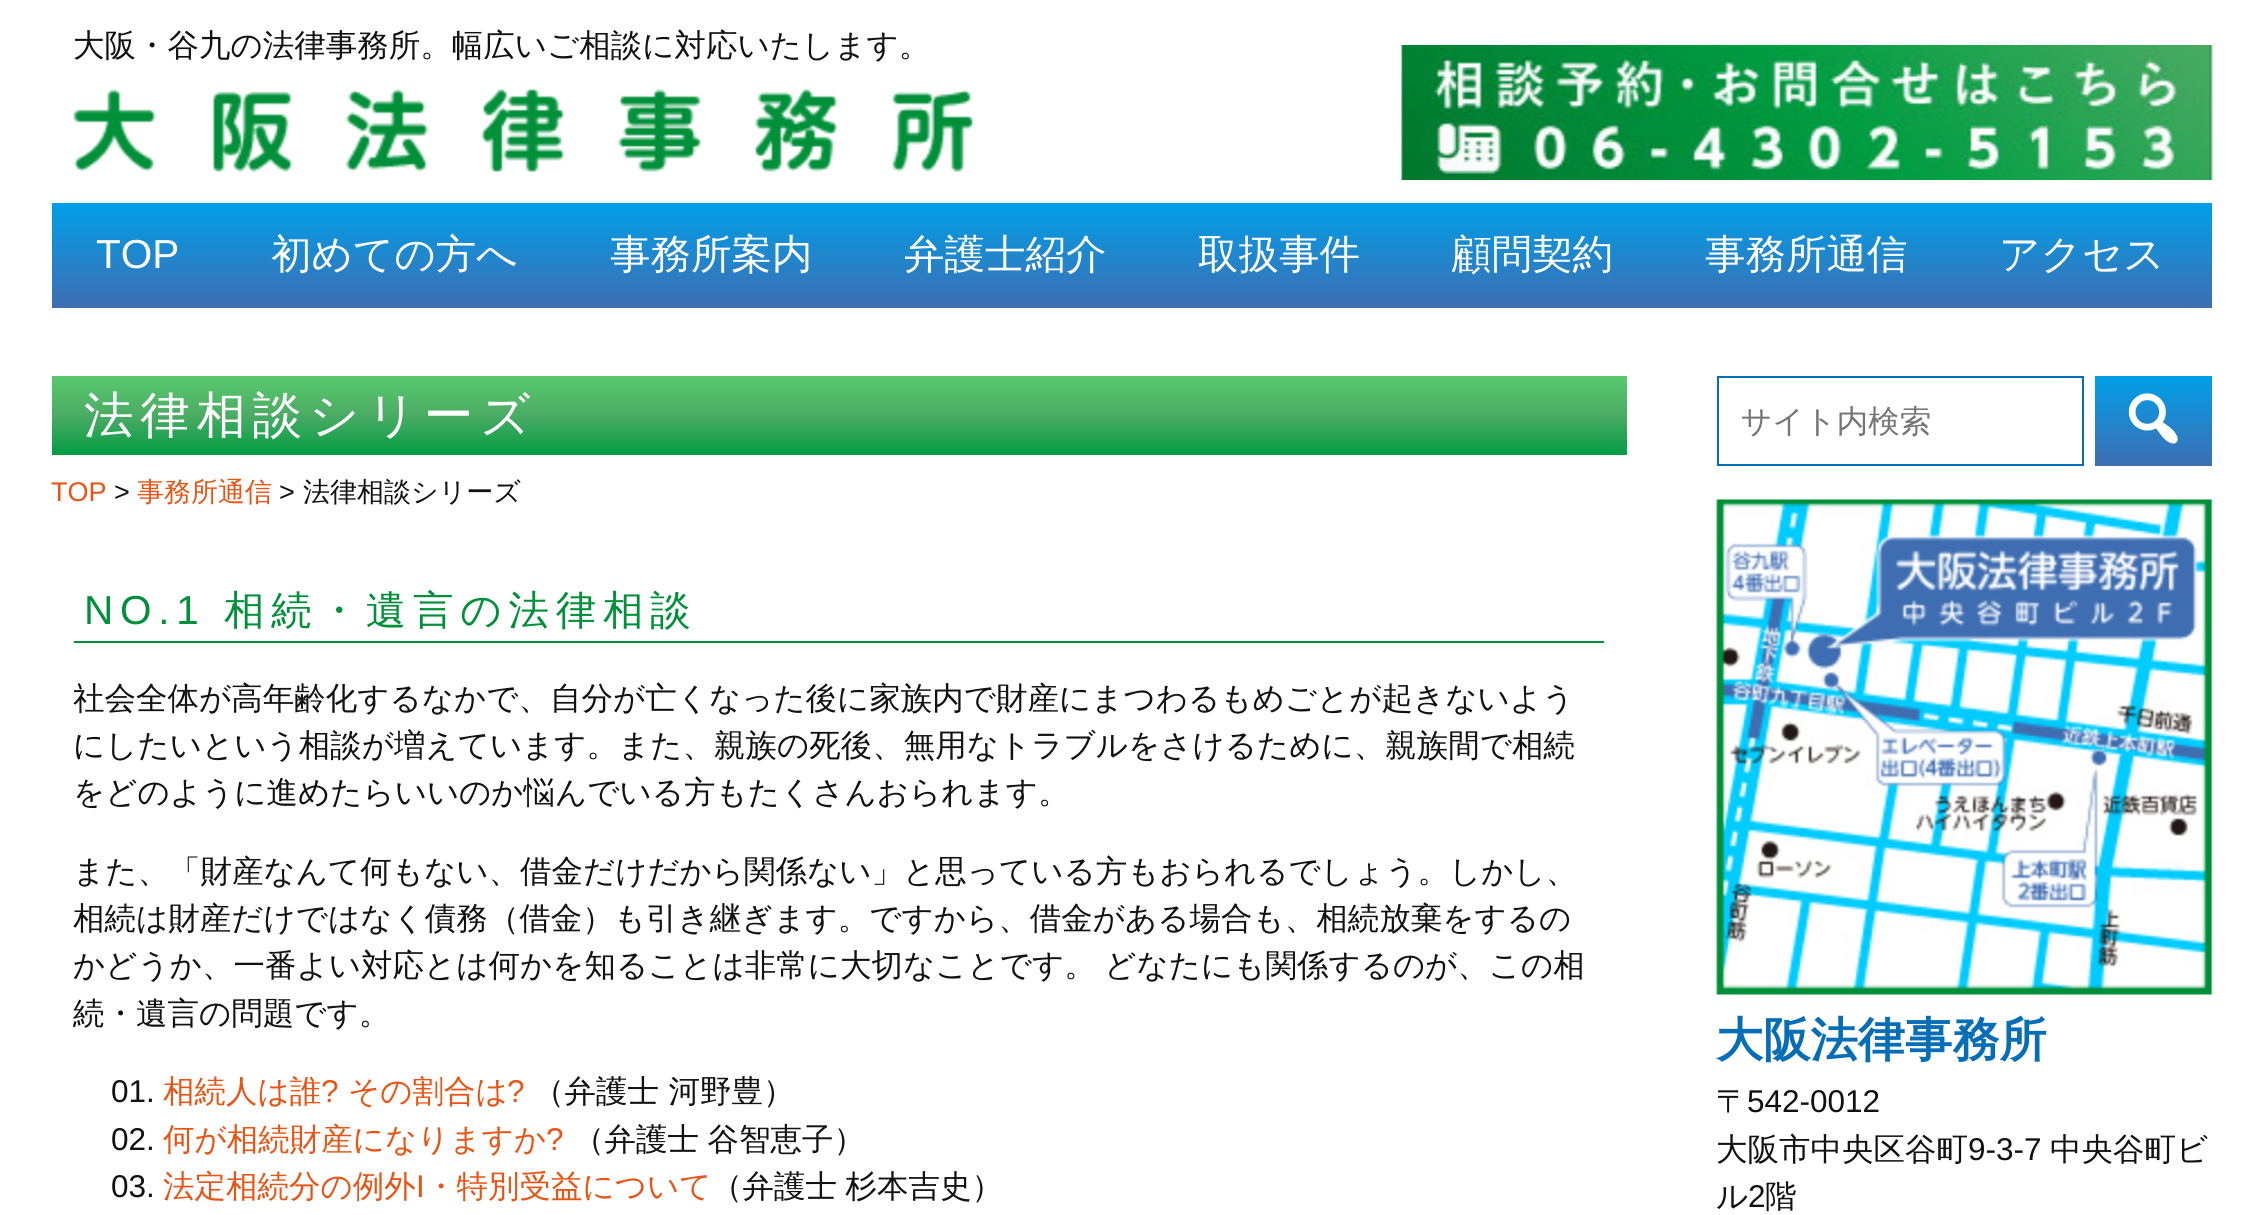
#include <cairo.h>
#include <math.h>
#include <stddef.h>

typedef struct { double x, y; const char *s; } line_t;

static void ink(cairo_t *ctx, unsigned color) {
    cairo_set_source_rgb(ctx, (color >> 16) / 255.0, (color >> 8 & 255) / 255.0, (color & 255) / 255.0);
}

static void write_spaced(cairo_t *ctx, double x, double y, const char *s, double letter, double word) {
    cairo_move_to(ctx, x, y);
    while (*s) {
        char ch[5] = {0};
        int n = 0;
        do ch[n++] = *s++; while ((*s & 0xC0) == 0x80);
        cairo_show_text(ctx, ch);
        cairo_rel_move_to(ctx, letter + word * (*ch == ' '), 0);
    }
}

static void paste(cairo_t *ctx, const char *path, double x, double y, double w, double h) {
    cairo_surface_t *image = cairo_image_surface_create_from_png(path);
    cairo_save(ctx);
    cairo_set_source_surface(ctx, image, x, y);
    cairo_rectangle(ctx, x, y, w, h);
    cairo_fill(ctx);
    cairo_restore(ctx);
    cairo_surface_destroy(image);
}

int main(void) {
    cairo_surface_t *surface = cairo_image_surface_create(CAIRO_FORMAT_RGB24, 2260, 1215);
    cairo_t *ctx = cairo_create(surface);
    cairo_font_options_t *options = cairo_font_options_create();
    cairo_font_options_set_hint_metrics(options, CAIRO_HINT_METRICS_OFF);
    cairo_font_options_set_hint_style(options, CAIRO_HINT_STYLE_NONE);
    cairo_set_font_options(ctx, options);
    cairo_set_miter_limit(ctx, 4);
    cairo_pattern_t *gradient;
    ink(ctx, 0xFFFFFF);
    cairo_paint(ctx);
    cairo_select_font_face(ctx, "WenQuanYi Zen Hei Medium", CAIRO_FONT_SLANT_NORMAL, CAIRO_FONT_WEIGHT_NORMAL);
    cairo_set_font_size(ctx, 31.5);
    ink(ctx, 0x111111);
    cairo_move_to(ctx, 73, 56);
    cairo_show_text(ctx, "大阪・谷九の法律事務所。幅広いご相談に対応いたします。");
    paste(ctx, "media/1.png", 73, 88, 901, 84);
    paste(ctx, "media/2.png", 1401, 45, 812, 135);
    gradient = cairo_pattern_create_linear(1132, 308, 1132, 203);
    cairo_pattern_add_color_stop_rgba(gradient, 0, 0.247, 0.431, 0.698, 1);
    cairo_pattern_add_color_stop_rgba(gradient, 1, 0, 0.624, 0.91, 1);
    cairo_set_source(ctx, gradient);
    cairo_pattern_destroy(gradient);
    cairo_rectangle(ctx, 52, 203, 2160, 105);
    cairo_fill(ctx);
    cairo_select_font_face(ctx, "Liberation Sans", CAIRO_FONT_SLANT_NORMAL, CAIRO_FONT_WEIGHT_NORMAL);
    cairo_set_font_size(ctx, 40.5);
    ink(ctx, 0xFFFFFF);
    cairo_move_to(ctx, 96, 268);
    cairo_show_text(ctx, "TOP");
    cairo_select_font_face(ctx, "WenQuanYi Zen Hei Medium", CAIRO_FONT_SLANT_NORMAL, CAIRO_FONT_WEIGHT_NORMAL);
    {
        static const line_t items[] = {
            {271, 268, "初めての方へ"},
            {610, 268, "事務所案内"},
            {904, 268, "弁護士紹介"},
            {1198, 268, "取扱事件"},
            {1451, 268, "顧問契約"},
            {1705, 268, "事務所通信"},
            {1999, 268, "アクセス"},
        };
        for (size_t i = 0; i < sizeof items / sizeof *items; i++) {
            cairo_move_to(ctx, items[i].x, items[i].y);
            cairo_show_text(ctx, items[i].s);
        }
    }
    gradient = cairo_pattern_create_linear(839, 455, 839, 376);
    cairo_pattern_add_color_stop_rgba(gradient, 0, 0, 0.616, 0.259, 1);
    cairo_pattern_add_color_stop_rgba(gradient, 0.5, 0.294, 0.671, 0.392, 1);
    cairo_pattern_add_color_stop_rgba(gradient, 1, 0.349, 0.792, 0.431, 1);
    cairo_set_source(ctx, gradient);
    cairo_pattern_destroy(gradient);
    cairo_rectangle(ctx, 52, 376, 1575, 79);
    cairo_fill(ctx);
    cairo_set_font_size(ctx, 49.5);
    ink(ctx, 0xFFFFFF);
    write_spaced(ctx, 84, 432, "法律相談シリーズ", 6.75, 0);
    cairo_select_font_face(ctx, "Liberation Sans", CAIRO_FONT_SLANT_NORMAL, CAIRO_FONT_WEIGHT_NORMAL);
    cairo_set_font_size(ctx, 27);
    ink(ctx, 0xE95414);
    cairo_move_to(ctx, 51, 501);
    cairo_show_text(ctx, "TOP");
    ink(ctx, 0x111111);
    cairo_move_to(ctx, 114, 501);
    cairo_show_text(ctx, ">");
    cairo_select_font_face(ctx, "WenQuanYi Zen Hei Medium", CAIRO_FONT_SLANT_NORMAL, CAIRO_FONT_WEIGHT_NORMAL);
    ink(ctx, 0xE95414);
    cairo_move_to(ctx, 137, 501);
    cairo_show_text(ctx, "事務所通信");
    cairo_select_font_face(ctx, "Liberation Sans", CAIRO_FONT_SLANT_NORMAL, CAIRO_FONT_WEIGHT_NORMAL);
    ink(ctx, 0x111111);
    cairo_move_to(ctx, 279, 501);
    cairo_show_text(ctx, ">");
    cairo_select_font_face(ctx, "WenQuanYi Zen Hei Medium", CAIRO_FONT_SLANT_NORMAL, CAIRO_FONT_WEIGHT_NORMAL);
    cairo_move_to(ctx, 303, 501);
    cairo_show_text(ctx, "法律相談シリーズ");
    ink(ctx, 0x009039);
    cairo_rectangle(ctx, 74, 641, 1530, 2);
    cairo_fill(ctx);
    cairo_select_font_face(ctx, "Liberation Sans", CAIRO_FONT_SLANT_NORMAL, CAIRO_FONT_WEIGHT_NORMAL);
    cairo_set_font_size(ctx, 40.5);
    write_spaced(ctx, 84, 624, "NO.1", 6.75, 0);
    cairo_select_font_face(ctx, "WenQuanYi Zen Hei Medium", CAIRO_FONT_SLANT_NORMAL, CAIRO_FONT_WEIGHT_NORMAL);
    write_spaced(ctx, 224, 624, "相続・遺言の法律相談", 6.75, 0);
    cairo_set_font_size(ctx, 31.5);
    ink(ctx, 0x111111);
    {
        static const line_t items[] = {
            {73, 709, "社会全体が高年齢化するなかで、自分が亡くなった後に家族内で財産にまつわるもめごとが起きないよう"},
            {73, 756, "にしたいという相談が増えています。また、親族の死後、無用なトラブルをさけるために、親族間で相続"},
            {73, 803, "をどのように進めたらいいのか悩んでいる方もたくさんおられます。"},
            {73, 882, "また、「財産なんて何もない、借金だけだから関係ない」と思っている方もおられるでしょう。しかし、"},
            {73, 929, "相続は財産だけではなく債務（借金）も引き継ぎます。ですから、借金がある場合も、相続放棄をするの"},
        };
        for (size_t i = 0; i < sizeof items / sizeof *items; i++) {
            cairo_move_to(ctx, items[i].x, items[i].y);
            cairo_show_text(ctx, items[i].s);
        }
    }
    write_spaced(ctx, 73, 976, "かどうか、一番よい対応とは何かを知ることは非常に大切なことです。 どなたにも関係するのが、この相", 0, -1);
    cairo_move_to(ctx, 73, 1024);
    cairo_show_text(ctx, "続・遺言の問題です。");
    cairo_select_font_face(ctx, "Liberation Sans", CAIRO_FONT_SLANT_NORMAL, CAIRO_FONT_WEIGHT_NORMAL);
    cairo_move_to(ctx, 111, 1102);
    cairo_show_text(ctx, "01.");
    cairo_select_font_face(ctx, "WenQuanYi Zen Hei Medium", CAIRO_FONT_SLANT_NORMAL, CAIRO_FONT_WEIGHT_NORMAL);
    ink(ctx, 0xE95414);
    cairo_move_to(ctx, 163, 1102);
    cairo_show_text(ctx, "相続人は誰");
    cairo_select_font_face(ctx, "Liberation Sans", CAIRO_FONT_SLANT_NORMAL, CAIRO_FONT_WEIGHT_NORMAL);
    cairo_move_to(ctx, 321, 1102);
    cairo_show_text(ctx, "?");
    cairo_select_font_face(ctx, "WenQuanYi Zen Hei Medium", CAIRO_FONT_SLANT_NORMAL, CAIRO_FONT_WEIGHT_NORMAL);
    cairo_move_to(ctx, 348, 1102);
    cairo_show_text(ctx, "その割合は");
    cairo_select_font_face(ctx, "Liberation Sans", CAIRO_FONT_SLANT_NORMAL, CAIRO_FONT_WEIGHT_NORMAL);
    cairo_move_to(ctx, 507, 1102);
    cairo_show_text(ctx, "?");
    cairo_select_font_face(ctx, "WenQuanYi Zen Hei Medium", CAIRO_FONT_SLANT_NORMAL, CAIRO_FONT_WEIGHT_NORMAL);
    ink(ctx, 0x111111);
    cairo_move_to(ctx, 533, 1102);
    cairo_show_text(ctx, "（弁護士 河野豊）");
    cairo_select_font_face(ctx, "Liberation Sans", CAIRO_FONT_SLANT_NORMAL, CAIRO_FONT_WEIGHT_NORMAL);
    cairo_move_to(ctx, 111, 1150);
    cairo_show_text(ctx, "02.");
    cairo_select_font_face(ctx, "WenQuanYi Zen Hei Medium", CAIRO_FONT_SLANT_NORMAL, CAIRO_FONT_WEIGHT_NORMAL);
    ink(ctx, 0xE95414);
    cairo_move_to(ctx, 163, 1150);
    cairo_show_text(ctx, "何が相続財産になりますか");
    cairo_select_font_face(ctx, "Liberation Sans", CAIRO_FONT_SLANT_NORMAL, CAIRO_FONT_WEIGHT_NORMAL);
    cairo_move_to(ctx, 546, 1150);
    cairo_show_text(ctx, "?");
    cairo_select_font_face(ctx, "WenQuanYi Zen Hei Medium", CAIRO_FONT_SLANT_NORMAL, CAIRO_FONT_WEIGHT_NORMAL);
    ink(ctx, 0x111111);
    write_spaced(ctx, 573, 1150, "（弁護士 谷智恵子）", 0, -1);
    cairo_select_font_face(ctx, "Liberation Sans", CAIRO_FONT_SLANT_NORMAL, CAIRO_FONT_WEIGHT_NORMAL);
    cairo_move_to(ctx, 111, 1197);
    cairo_show_text(ctx, "03.");
    cairo_select_font_face(ctx, "WenQuanYi Zen Hei Medium", CAIRO_FONT_SLANT_NORMAL, CAIRO_FONT_WEIGHT_NORMAL);
    ink(ctx, 0xE95414);
    cairo_move_to(ctx, 163, 1197);
    cairo_show_text(ctx, "法定相続分の例外");
    cairo_select_font_face(ctx, "Liberation Sans", CAIRO_FONT_SLANT_NORMAL, CAIRO_FONT_WEIGHT_NORMAL);
    cairo_move_to(ctx, 416, 1197);
    cairo_show_text(ctx, "I");
    cairo_select_font_face(ctx, "WenQuanYi Zen Hei Medium", CAIRO_FONT_SLANT_NORMAL, CAIRO_FONT_WEIGHT_NORMAL);
    cairo_move_to(ctx, 425, 1197);
    cairo_show_text(ctx, "・特別受益について");
    ink(ctx, 0x111111);
    write_spaced(ctx, 711, 1197, "（弁護士 杉本吉史）", 0, -1);
    cairo_rectangle(ctx, 1718, 377, 365, 88);
    ink(ctx, 0x066EB7);
    cairo_stroke(ctx);
    cairo_save(ctx);
    cairo_rectangle(ctx, 1742, 403, 308, 40);
    cairo_clip(ctx);
    ink(ctx, 0x757575);
    cairo_move_to(ctx, 1740, 432);
    cairo_show_text(ctx, "サイト内検索");
    cairo_restore(ctx);
    gradient = cairo_pattern_create_linear(2153, 466, 2153, 376);
    cairo_pattern_add_color_stop_rgba(gradient, 0, 0.247, 0.431, 0.698, 1);
    cairo_pattern_add_color_stop_rgba(gradient, 1, 0, 0.624, 0.91, 1);
    cairo_set_source(ctx, gradient);
    cairo_pattern_destroy(gradient);
    cairo_rectangle(ctx, 2095, 376, 117, 90);
    cairo_fill(ctx);
    paste(ctx, "media/3.png", 2128, 393, 50, 51);
    paste(ctx, "media/4.png", 1716, 499, 497, 496);
    cairo_select_font_face(ctx, "WenQuanYi Zen Hei", CAIRO_FONT_SLANT_NORMAL, CAIRO_FONT_WEIGHT_BOLD);
    cairo_set_font_size(ctx, 47.25);
    ink(ctx, 0x066EB7);
    cairo_move_to(ctx, 1716, 1056);
    cairo_show_text(ctx, "大阪法律事務所");
    cairo_select_font_face(ctx, "WenQuanYi Zen Hei Medium", CAIRO_FONT_SLANT_NORMAL, CAIRO_FONT_WEIGHT_NORMAL);
    cairo_set_font_size(ctx, 31.5);
    ink(ctx, 0x111111);
    cairo_move_to(ctx, 1716, 1112);
    cairo_show_text(ctx, "〒");
    cairo_select_font_face(ctx, "Liberation Sans", CAIRO_FONT_SLANT_NORMAL, CAIRO_FONT_WEIGHT_NORMAL);
    cairo_move_to(ctx, 1747, 1112);
    cairo_show_text(ctx, "542-0012");
    cairo_select_font_face(ctx, "WenQuanYi Zen Hei Medium", CAIRO_FONT_SLANT_NORMAL, CAIRO_FONT_WEIGHT_NORMAL);
    cairo_move_to(ctx, 1716, 1160);
    cairo_show_text(ctx, "大阪市中央区谷町");
    cairo_select_font_face(ctx, "Liberation Sans", CAIRO_FONT_SLANT_NORMAL, CAIRO_FONT_WEIGHT_NORMAL);
    cairo_move_to(ctx, 1968, 1160);
    cairo_show_text(ctx, "9-3-7");
    cairo_select_font_face(ctx, "WenQuanYi Zen Hei Medium", CAIRO_FONT_SLANT_NORMAL, CAIRO_FONT_WEIGHT_NORMAL);
    cairo_move_to(ctx, 2050, 1160);
    cairo_show_text(ctx, "中央谷町ビ");
    cairo_move_to(ctx, 1716, 1207);
    cairo_show_text(ctx, "ル");
    cairo_select_font_face(ctx, "Liberation Sans", CAIRO_FONT_SLANT_NORMAL, CAIRO_FONT_WEIGHT_NORMAL);
    cairo_move_to(ctx, 1748, 1207);
    cairo_show_text(ctx, "2");
    cairo_select_font_face(ctx, "WenQuanYi Zen Hei Medium", CAIRO_FONT_SLANT_NORMAL, CAIRO_FONT_WEIGHT_NORMAL);
    cairo_move_to(ctx, 1765, 1207);
    cairo_show_text(ctx, "階");
    cairo_surface_write_to_png(surface, "image.png");
    cairo_font_options_destroy(options);
    cairo_destroy(ctx);
    cairo_surface_destroy(surface);
    return 0;
}
